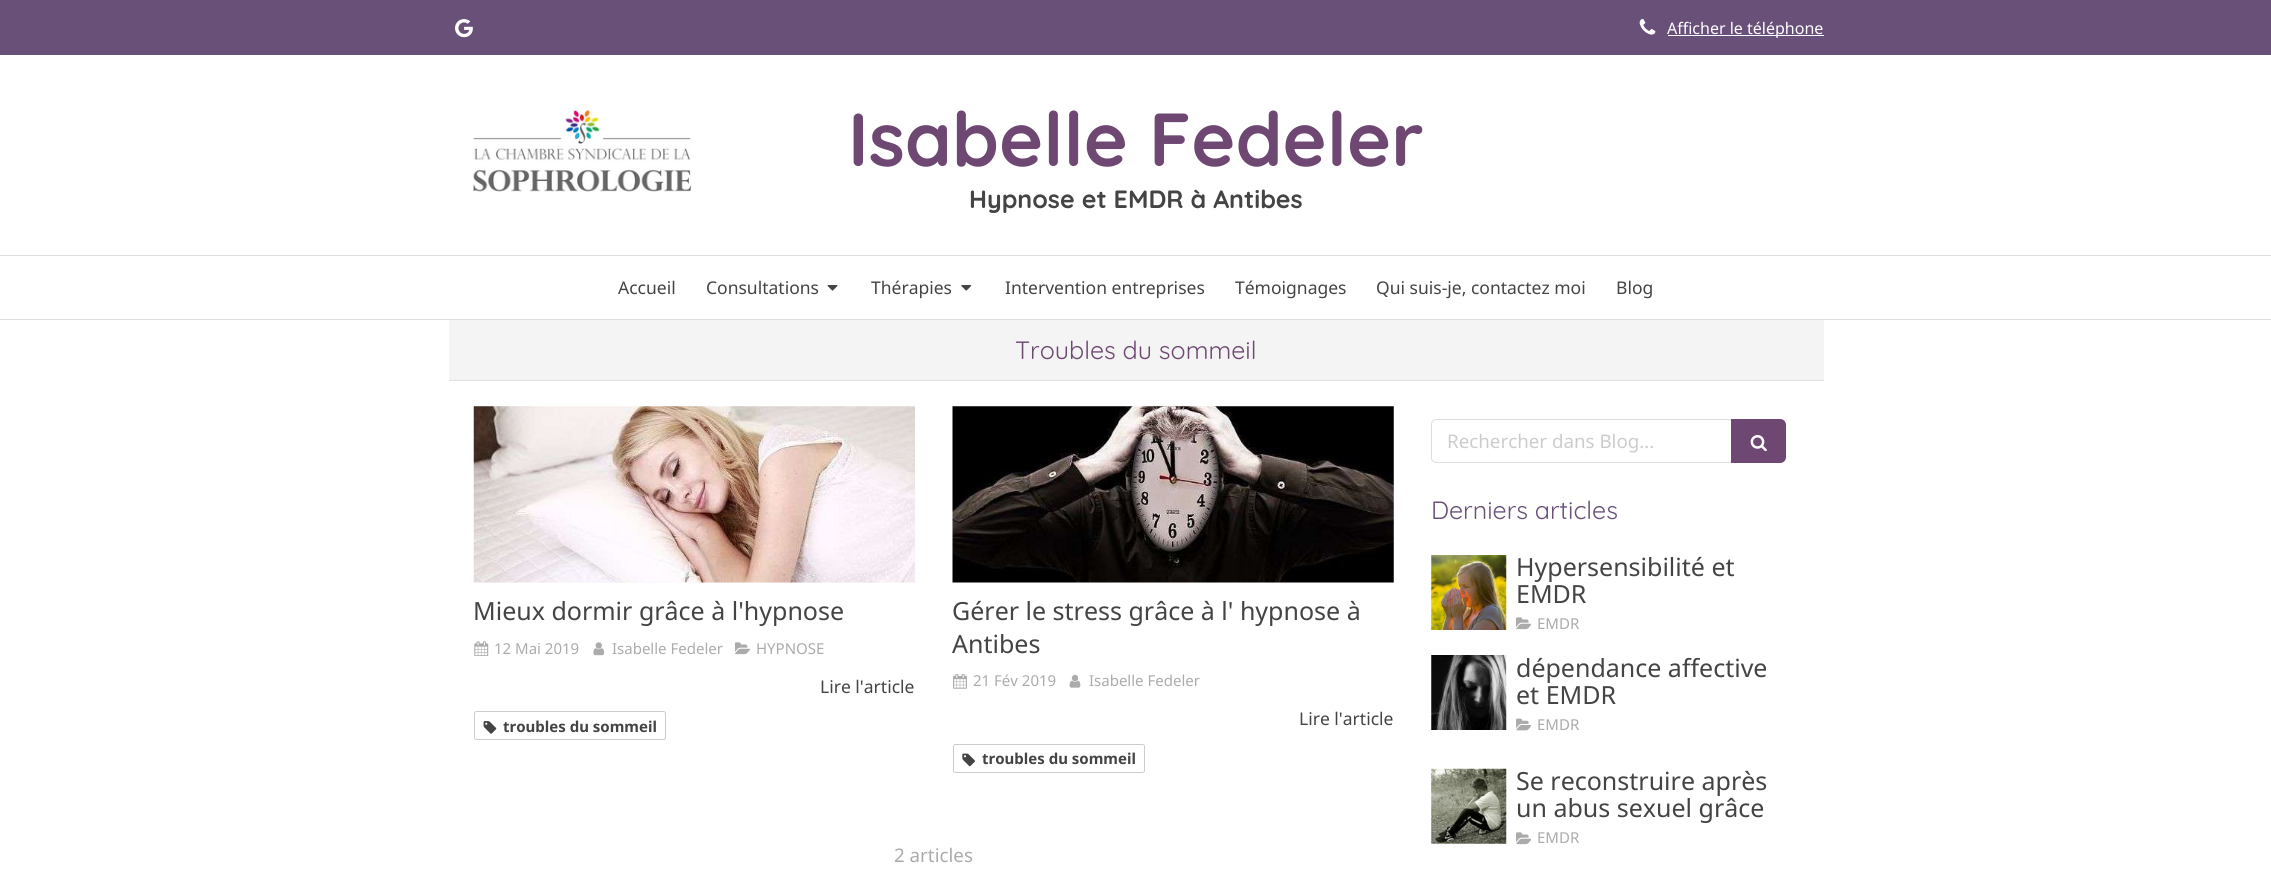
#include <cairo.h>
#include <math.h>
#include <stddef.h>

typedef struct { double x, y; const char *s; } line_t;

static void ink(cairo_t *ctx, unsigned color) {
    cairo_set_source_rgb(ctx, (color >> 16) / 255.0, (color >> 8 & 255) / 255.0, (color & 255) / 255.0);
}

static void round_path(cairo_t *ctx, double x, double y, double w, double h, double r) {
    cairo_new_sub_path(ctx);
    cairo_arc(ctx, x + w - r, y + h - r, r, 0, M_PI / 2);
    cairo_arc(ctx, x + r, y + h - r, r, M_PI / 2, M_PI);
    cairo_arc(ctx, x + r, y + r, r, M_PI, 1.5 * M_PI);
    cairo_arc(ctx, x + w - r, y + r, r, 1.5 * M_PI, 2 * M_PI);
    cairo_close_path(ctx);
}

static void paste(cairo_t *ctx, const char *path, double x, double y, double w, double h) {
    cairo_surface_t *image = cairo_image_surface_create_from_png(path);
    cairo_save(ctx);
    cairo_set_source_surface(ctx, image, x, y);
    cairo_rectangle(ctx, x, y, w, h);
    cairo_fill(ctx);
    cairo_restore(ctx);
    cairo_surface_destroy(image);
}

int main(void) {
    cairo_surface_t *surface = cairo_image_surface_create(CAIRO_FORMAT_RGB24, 2271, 885);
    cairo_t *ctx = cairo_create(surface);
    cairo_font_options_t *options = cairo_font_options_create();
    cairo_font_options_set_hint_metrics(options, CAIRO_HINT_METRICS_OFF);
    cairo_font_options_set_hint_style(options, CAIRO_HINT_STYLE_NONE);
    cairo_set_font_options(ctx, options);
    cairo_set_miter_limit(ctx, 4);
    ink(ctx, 0xFFFFFF);
    cairo_paint(ctx);
    ink(ctx, 0x685078);
    cairo_rectangle(ctx, 0, 0, 2271, 55);
    cairo_fill(ctx);
    paste(ctx, "media/1.png", 455, 19, 18, 19);
    paste(ctx, "media/2.png", 1639, 19, 17, 16);
    ink(ctx, 0xFFFFFF);
    cairo_rectangle(ctx, 1668, 35, 156, 1);
    cairo_fill(ctx);
    cairo_select_font_face(ctx, "Noto Sans", CAIRO_FONT_SLANT_NORMAL, CAIRO_FONT_WEIGHT_NORMAL);
    cairo_set_font_size(ctx, 16);
    cairo_move_to(ctx, 1667, 34);
    cairo_show_text(ctx, "Afficher le téléphone");
    paste(ctx, "media/3.png", 472, 110, 220, 82);
    cairo_select_font_face(ctx, "Quicksand", CAIRO_FONT_SLANT_NORMAL, CAIRO_FONT_WEIGHT_BOLD);
    cairo_set_font_size(ctx, 75);
    ink(ctx, 0x6E4873);
    cairo_move_to(ctx, 848, 166);
    cairo_show_text(ctx, "Isabelle Fedeler");
    cairo_set_font_size(ctx, 25);
    ink(ctx, 0x444444);
    cairo_move_to(ctx, 969, 208);
    cairo_show_text(ctx, "Hypnose et EMDR à Antibes");
    ink(ctx, 0xDDDDDD);
    cairo_rectangle(ctx, 0, 255, 2271, 1);
    cairo_fill(ctx);
    cairo_rectangle(ctx, 0, 319, 2271, 1);
    cairo_fill(ctx);
    cairo_select_font_face(ctx, "Noto Sans", CAIRO_FONT_SLANT_NORMAL, CAIRO_FONT_WEIGHT_NORMAL);
    cairo_set_font_size(ctx, 17.5);
    ink(ctx, 0x444444);
    cairo_move_to(ctx, 618, 294);
    cairo_show_text(ctx, "Accueil");
    cairo_move_to(ctx, 706, 294);
    cairo_show_text(ctx, "Consultations");
    paste(ctx, "media/4.png", 827, 285, 11, 6);
    cairo_move_to(ctx, 871, 294);
    cairo_show_text(ctx, "Thérapies");
    paste(ctx, "media/5.png", 961, 285, 11, 6);
    {
        static const line_t items[] = {
            {1005, 294, "Intervention entreprises"},
            {1235, 294, "Témoignages"},
            {1376, 294, "Qui suis-je, contactez moi"},
            {1616, 294, "Blog"},
        };
        for (size_t i = 0; i < sizeof items / sizeof *items; i++) {
            cairo_move_to(ctx, items[i].x, items[i].y);
            cairo_show_text(ctx, items[i].s);
        }
    }
    ink(ctx, 0xF4F4F4);
    cairo_rectangle(ctx, 449, 320, 1375, 60);
    cairo_fill(ctx);
    ink(ctx, 0xE2E2E2);
    cairo_rectangle(ctx, 449, 380, 1375, 1);
    cairo_fill(ctx);
    cairo_select_font_face(ctx, "Quicksand", CAIRO_FONT_SLANT_NORMAL, CAIRO_FONT_WEIGHT_NORMAL);
    cairo_set_font_size(ctx, 25);
    ink(ctx, 0x6E4873);
    cairo_move_to(ctx, 1015, 359);
    cairo_show_text(ctx, "Troubles du sommeil");
    ink(ctx, 0xFAFAFA);
    cairo_rectangle(ctx, 474, 406, 441, 177);
    cairo_fill(ctx);
    paste(ctx, "media/6.png", 473, 406, 442, 177);
    cairo_select_font_face(ctx, "Noto Sans", CAIRO_FONT_SLANT_NORMAL, CAIRO_FONT_WEIGHT_NORMAL);
    ink(ctx, 0x444444);
    cairo_move_to(ctx, 473, 620);
    cairo_show_text(ctx, "Mieux dormir grâce à l'hypnose");
    paste(ctx, "media/7.png", 474, 641, 15, 15);
    cairo_set_font_size(ctx, 15);
    ink(ctx, 0xABABAB);
    cairo_move_to(ctx, 494, 654);
    cairo_show_text(ctx, "12 Mai 2019");
    paste(ctx, "media/8.png", 593, 642, 12, 14);
    cairo_move_to(ctx, 612, 654);
    cairo_show_text(ctx, "Isabelle Fedeler");
    paste(ctx, "media/9.png", 735, 642, 15, 13);
    cairo_move_to(ctx, 756, 654);
    cairo_show_text(ctx, "HYPNOSE");
    cairo_set_font_size(ctx, 17.5);
    ink(ctx, 0x444444);
    cairo_move_to(ctx, 820, 693);
    cairo_show_text(ctx, "Lire l'article");
    round_path(ctx, 474.5, 711.5, 191, 28, 2);
    ink(ctx, 0xCCCCCC);
    cairo_set_line_width(ctx, 1);
    cairo_stroke(ctx);
    paste(ctx, "media/10.png", 483, 721, 14, 13);
    cairo_select_font_face(ctx, "Noto Sans", CAIRO_FONT_SLANT_NORMAL, CAIRO_FONT_WEIGHT_BOLD);
    cairo_set_font_size(ctx, 15);
    ink(ctx, 0x444444);
    cairo_move_to(ctx, 503, 732);
    cairo_show_text(ctx, "troubles du sommeil");
    ink(ctx, 0xFAFAFA);
    cairo_rectangle(ctx, 953, 406, 441, 177);
    cairo_fill(ctx);
    paste(ctx, "media/11.png", 952, 406, 442, 177);
    cairo_select_font_face(ctx, "Noto Sans", CAIRO_FONT_SLANT_NORMAL, CAIRO_FONT_WEIGHT_NORMAL);
    cairo_set_font_size(ctx, 25);
    ink(ctx, 0x444444);
    cairo_move_to(ctx, 952, 620);
    cairo_show_text(ctx, "Gérer le stress grâce à l' hypnose à");
    cairo_move_to(ctx, 952, 653);
    cairo_show_text(ctx, "Antibes");
    paste(ctx, "media/12.png", 953, 674, 14, 15);
    cairo_set_font_size(ctx, 15);
    ink(ctx, 0xABABAB);
    cairo_move_to(ctx, 973, 686);
    cairo_show_text(ctx, "21 Fév 2019");
    paste(ctx, "media/13.png", 1069, 674, 12, 14);
    cairo_move_to(ctx, 1089, 686);
    cairo_show_text(ctx, "Isabelle Fedeler");
    cairo_set_font_size(ctx, 17.5);
    ink(ctx, 0x444444);
    cairo_move_to(ctx, 1299, 725);
    cairo_show_text(ctx, "Lire l'article");
    round_path(ctx, 953.5, 744.5, 191, 28, 2);
    ink(ctx, 0xCCCCCC);
    cairo_stroke(ctx);
    paste(ctx, "media/14.png", 962, 753, 13, 14);
    cairo_select_font_face(ctx, "Noto Sans", CAIRO_FONT_SLANT_NORMAL, CAIRO_FONT_WEIGHT_BOLD);
    cairo_set_font_size(ctx, 15);
    ink(ctx, 0x444444);
    cairo_move_to(ctx, 982, 764);
    cairo_show_text(ctx, "troubles du sommeil");
    cairo_select_font_face(ctx, "Noto Sans", CAIRO_FONT_SLANT_NORMAL, CAIRO_FONT_WEIGHT_NORMAL);
    cairo_set_font_size(ctx, 18.75);
    ink(ctx, 0xABABAB);
    cairo_move_to(ctx, 894, 862);
    cairo_show_text(ctx, "2 articles");
    round_path(ctx, 1431.5, 419.5, 301, 43, 4.5);
    ink(ctx, 0xDDDDDD);
    cairo_stroke(ctx);
    ink(ctx, 0xCCCCCC);
    cairo_move_to(ctx, 1447, 448);
    cairo_show_text(ctx, "Rechercher dans Blog...");
    ink(ctx, 0x6E4873);
    cairo_new_path(ctx);
    cairo_move_to(ctx, 1731, 419);
    cairo_line_to(ctx, 1780, 419);
    cairo_curve_to(ctx, 1783.5, 419, 1786, 421.5, 1786, 425);
    cairo_line_to(ctx, 1786, 457);
    cairo_curve_to(ctx, 1786, 460.5, 1783.5, 463, 1780, 463);
    cairo_line_to(ctx, 1731, 463);
    cairo_close_path(ctx);
    cairo_fill(ctx);
    paste(ctx, "media/15.png", 1750, 435, 17, 16);
    cairo_select_font_face(ctx, "Quicksand", CAIRO_FONT_SLANT_NORMAL, CAIRO_FONT_WEIGHT_NORMAL);
    cairo_set_font_size(ctx, 25);
    ink(ctx, 0x685078);
    cairo_move_to(ctx, 1431, 519);
    cairo_show_text(ctx, "Derniers articles");
    paste(ctx, "media/16.png", 1431, 555, 76, 75);
    cairo_select_font_face(ctx, "Noto Sans", CAIRO_FONT_SLANT_NORMAL, CAIRO_FONT_WEIGHT_NORMAL);
    ink(ctx, 0x444444);
    cairo_move_to(ctx, 1516, 576);
    cairo_show_text(ctx, "Hypersensibilité et");
    cairo_move_to(ctx, 1516, 603);
    cairo_show_text(ctx, "EMDR");
    paste(ctx, "media/17.png", 1516, 617, 15, 13);
    cairo_set_font_size(ctx, 15);
    ink(ctx, 0xABABAB);
    cairo_move_to(ctx, 1537, 629);
    cairo_show_text(ctx, "EMDR");
    paste(ctx, "media/18.png", 1431, 655, 76, 75);
    cairo_set_font_size(ctx, 25);
    ink(ctx, 0x444444);
    cairo_move_to(ctx, 1516, 677);
    cairo_show_text(ctx, "dépendance affective");
    cairo_move_to(ctx, 1516, 704);
    cairo_show_text(ctx, "et EMDR");
    paste(ctx, "media/19.png", 1516, 718, 15, 13);
    cairo_set_font_size(ctx, 15);
    ink(ctx, 0xABABAB);
    cairo_move_to(ctx, 1537, 730);
    cairo_show_text(ctx, "EMDR");
    ink(ctx, 0xFAFAFA);
    cairo_rectangle(ctx, 1431, 769, 75, 75);
    cairo_fill(ctx);
    paste(ctx, "media/20.png", 1431, 768, 76, 76);
    cairo_set_font_size(ctx, 25);
    ink(ctx, 0x444444);
    cairo_move_to(ctx, 1516, 790);
    cairo_show_text(ctx, "Se reconstruire après");
    cairo_move_to(ctx, 1516, 817);
    cairo_show_text(ctx, "un abus sexuel grâce");
    paste(ctx, "media/17.png", 1516, 832, 15, 13);
    cairo_set_font_size(ctx, 15);
    ink(ctx, 0xABABAB);
    cairo_move_to(ctx, 1537, 843);
    cairo_show_text(ctx, "EMDR");
    cairo_surface_write_to_png(surface, "image.png");
    cairo_font_options_destroy(options);
    cairo_destroy(ctx);
    cairo_surface_destroy(surface);
    return 0;
}
